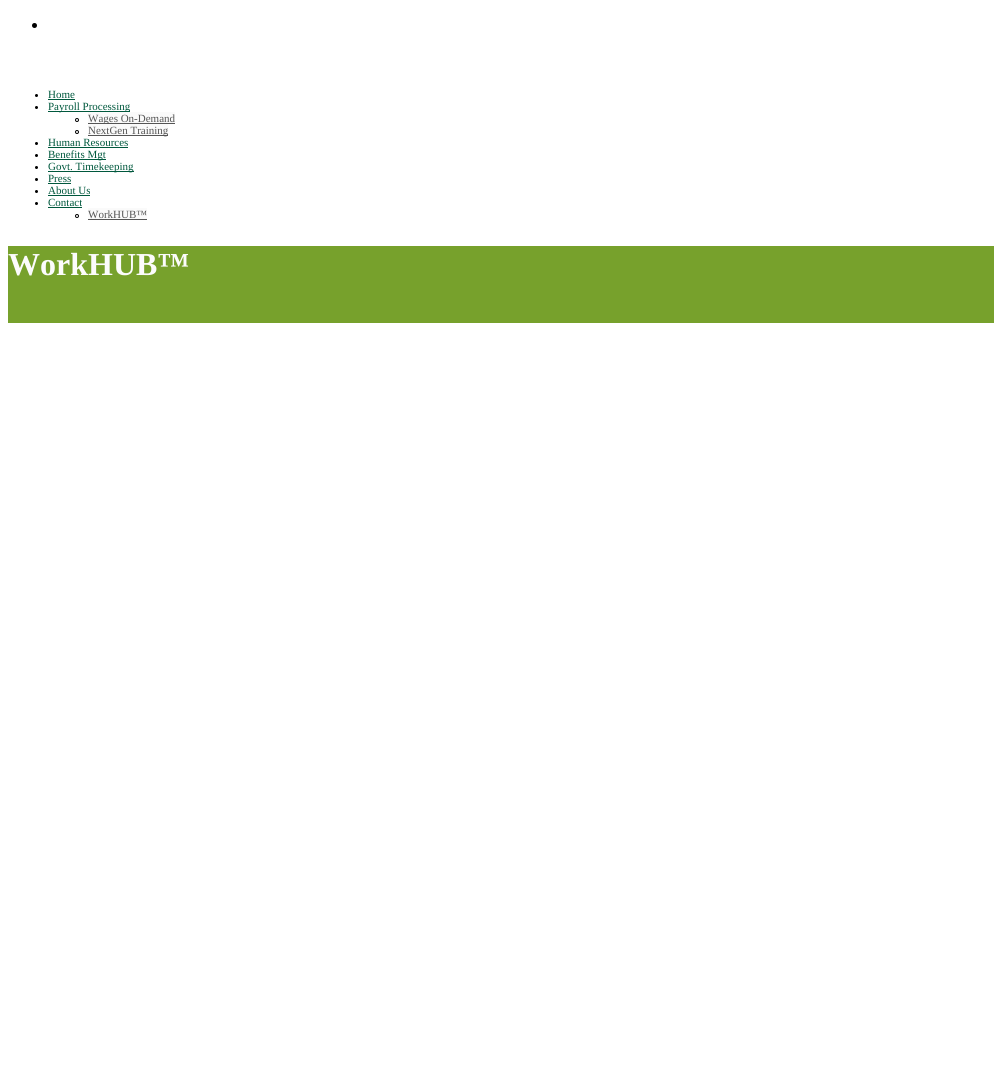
#include <cairo.h>
#include <math.h>
#include <stddef.h>


static void ink(cairo_t *ctx, unsigned color) {
    cairo_set_source_rgb(ctx, (color >> 16) / 255.0, (color >> 8 & 255) / 255.0, (color & 255) / 255.0);
}

int main(void) {
    cairo_surface_t *surface = cairo_image_surface_create(CAIRO_FORMAT_RGB24, 1002, 1092);
    cairo_t *ctx = cairo_create(surface);
    cairo_font_options_t *options = cairo_font_options_create();
    cairo_font_options_set_hint_metrics(options, CAIRO_HINT_METRICS_OFF);
    cairo_font_options_set_hint_style(options, CAIRO_HINT_STYLE_NONE);
    cairo_set_font_options(ctx, options);
    cairo_set_miter_limit(ctx, 4);
    ink(ctx, 0xFFFFFF);
    cairo_paint(ctx);
    ink(ctx, 0x000000);
    cairo_arc(ctx, 34.5, 25.5, 2.5, 0, 2 * M_PI);
    cairo_fill(ctx);
    cairo_arc(ctx, 36.5, 95.5, 1.5, 0, 2 * M_PI);
    cairo_fill(ctx);
    cairo_select_font_face(ctx, "Liberation Serif", CAIRO_FONT_SLANT_NORMAL, CAIRO_FONT_WEIGHT_NORMAL);
    cairo_set_font_size(ctx, 11);
    ink(ctx, 0x00583D);
    cairo_move_to(ctx, 48, 98);
    cairo_show_text(ctx, "Home");
    cairo_rectangle(ctx, 48, 99, 27, 1);
    cairo_fill(ctx);
    ink(ctx, 0x000000);
    cairo_arc(ctx, 36.5, 107.5, 1.5, 0, 2 * M_PI);
    cairo_fill(ctx);
    ink(ctx, 0x00583D);
    cairo_rectangle(ctx, 48, 111, 82, 1);
    cairo_fill(ctx);
    cairo_move_to(ctx, 48, 110);
    cairo_show_text(ctx, "Payroll Processing");
    cairo_new_path(ctx);
    cairo_arc(ctx, 77, 120, 1.5, 0, 2 * M_PI);
    ink(ctx, 0x000000);
    cairo_set_line_width(ctx, 1);
    cairo_stroke(ctx);
    ink(ctx, 0xFAFAFA);
    cairo_rectangle(ctx, 88, 112, 87, 11);
    cairo_fill(ctx);
    ink(ctx, 0x555555);
    cairo_rectangle(ctx, 88, 123, 87, 1);
    cairo_fill(ctx);
    cairo_move_to(ctx, 88, 122);
    cairo_show_text(ctx, "Wages On-Demand");
    cairo_new_path(ctx);
    cairo_arc(ctx, 77, 132, 1.5, 0, 2 * M_PI);
    ink(ctx, 0x000000);
    cairo_stroke(ctx);
    ink(ctx, 0xFAFAFA);
    cairo_rectangle(ctx, 88, 124, 80, 11);
    cairo_fill(ctx);
    ink(ctx, 0x555555);
    cairo_rectangle(ctx, 88, 135, 80, 1);
    cairo_fill(ctx);
    cairo_move_to(ctx, 88, 134);
    cairo_show_text(ctx, "NextGen Training");
    ink(ctx, 0x000000);
    cairo_new_path(ctx);
    cairo_arc(ctx, 36.5, 143.5, 1.5, 0, 2 * M_PI);
    cairo_fill(ctx);
    ink(ctx, 0x00583D);
    cairo_move_to(ctx, 48, 146);
    cairo_show_text(ctx, "Human Resources");
    cairo_rectangle(ctx, 48, 147, 80, 1);
    cairo_fill(ctx);
    ink(ctx, 0x000000);
    cairo_arc(ctx, 36.5, 155.5, 1.5, 0, 2 * M_PI);
    cairo_fill(ctx);
    ink(ctx, 0x00583D);
    cairo_rectangle(ctx, 48, 159, 58, 1);
    cairo_fill(ctx);
    cairo_move_to(ctx, 48, 158);
    cairo_show_text(ctx, "Benefits Mgt");
    ink(ctx, 0x000000);
    cairo_new_path(ctx);
    cairo_arc(ctx, 36.5, 167.5, 1.5, 0, 2 * M_PI);
    cairo_fill(ctx);
    ink(ctx, 0x00583D);
    cairo_rectangle(ctx, 48, 171, 86, 1);
    cairo_fill(ctx);
    cairo_move_to(ctx, 48, 170);
    cairo_show_text(ctx, "Govt. Timekeeping");
    ink(ctx, 0x000000);
    cairo_new_path(ctx);
    cairo_arc(ctx, 36.5, 179.5, 1.5, 0, 2 * M_PI);
    cairo_fill(ctx);
    ink(ctx, 0x00583D);
    cairo_move_to(ctx, 48, 182);
    cairo_show_text(ctx, "Press");
    cairo_rectangle(ctx, 48, 183, 23, 1);
    cairo_fill(ctx);
    ink(ctx, 0x000000);
    cairo_arc(ctx, 36.5, 191.5, 1.5, 0, 2 * M_PI);
    cairo_fill(ctx);
    ink(ctx, 0x00583D);
    cairo_move_to(ctx, 48, 194);
    cairo_show_text(ctx, "About Us");
    cairo_rectangle(ctx, 48, 195, 42, 1);
    cairo_fill(ctx);
    ink(ctx, 0x000000);
    cairo_arc(ctx, 36.5, 203.5, 1.5, 0, 2 * M_PI);
    cairo_fill(ctx);
    ink(ctx, 0x00583D);
    cairo_move_to(ctx, 48, 206);
    cairo_show_text(ctx, "Contact");
    cairo_rectangle(ctx, 48, 207, 34, 1);
    cairo_fill(ctx);
    cairo_arc(ctx, 77, 216, 1.5, 0, 2 * M_PI);
    ink(ctx, 0x000000);
    cairo_stroke(ctx);
    ink(ctx, 0xFAFAFA);
    cairo_rectangle(ctx, 88, 208, 59, 11);
    cairo_fill(ctx);
    ink(ctx, 0x555555);
    cairo_move_to(ctx, 88, 218);
    cairo_show_text(ctx, "WorkHUB™");
    cairo_rectangle(ctx, 88, 219, 59, 1);
    cairo_fill(ctx);
    ink(ctx, 0x77A12C);
    cairo_rectangle(ctx, 8, 246, 986, 77);
    cairo_fill(ctx);
    cairo_select_font_face(ctx, "Liberation Serif", CAIRO_FONT_SLANT_NORMAL, CAIRO_FONT_WEIGHT_BOLD);
    cairo_set_font_size(ctx, 32);
    ink(ctx, 0xFCFCFC);
    cairo_move_to(ctx, 8, 275);
    cairo_show_text(ctx, "WorkHUB™");
    cairo_surface_write_to_png(surface, "image.png");
    cairo_font_options_destroy(options);
    cairo_destroy(ctx);
    cairo_surface_destroy(surface);
    return 0;
}
